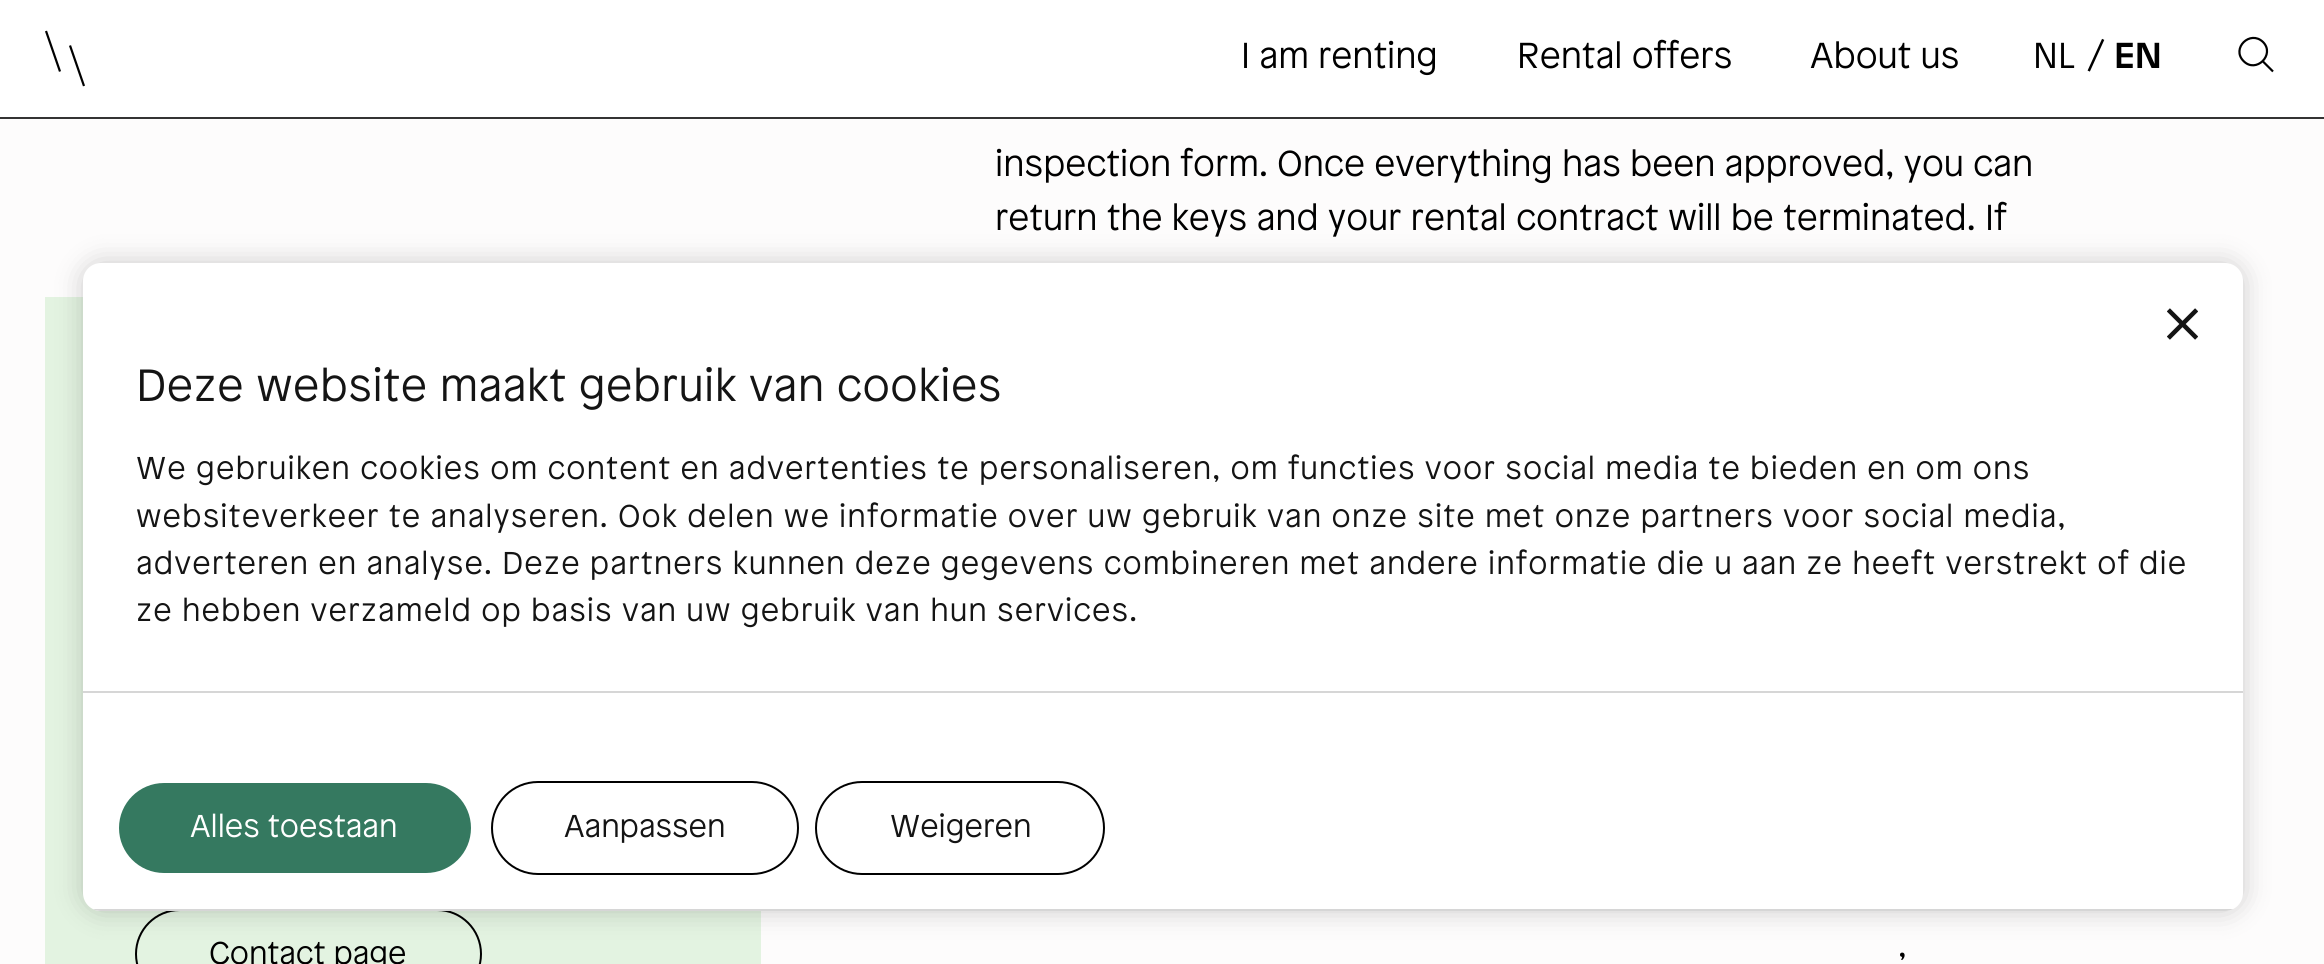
#include <cairo.h>
#include <math.h>
#include <stddef.h>

typedef struct { double x, y; const char *s; } line_t;

static void ink(cairo_t *ctx, unsigned color) {
    cairo_set_source_rgb(ctx, (color >> 16) / 255.0, (color >> 8 & 255) / 255.0, (color & 255) / 255.0);
}

static void write_spaced(cairo_t *ctx, double x, double y, const char *s, double letter, double word) {
    cairo_move_to(ctx, x, y);
    while (*s) {
        char ch[5] = {0};
        int n = 0;
        do ch[n++] = *s++; while ((*s & 0xC0) == 0x80);
        cairo_show_text(ctx, ch);
        cairo_rel_move_to(ctx, letter + word * (*ch == ' '), 0);
    }
}

static void round_path(cairo_t *ctx, double x, double y, double w, double h, double r) {
    cairo_new_sub_path(ctx);
    cairo_arc(ctx, x + w - r, y + h - r, r, 0, M_PI / 2);
    cairo_arc(ctx, x + r, y + h - r, r, M_PI / 2, M_PI);
    cairo_arc(ctx, x + r, y + r, r, M_PI, 1.5 * M_PI);
    cairo_arc(ctx, x + w - r, y + r, r, 1.5 * M_PI, 2 * M_PI);
    cairo_close_path(ctx);
}

static void blur_box(cairo_t *ctx, double x, double y, double w, double h, double r, double blur, double alpha) {
    cairo_push_group_with_content(ctx, CAIRO_CONTENT_ALPHA);
    cairo_set_operator(ctx, CAIRO_OPERATOR_SOURCE);
    for (int i = 15; i >= -15 && fmin(w, h) + blur * i / 3 > 0; i -= 2) {
        double e = blur * i / 6;
        cairo_set_source_rgba(ctx, 0, 0, 0, alpha * erfc((i - 1) / 8.5) / 2);
        round_path(ctx, x - e, y - e, w + 2 * e, h + 2 * e, fmax(0, fmin(r + e + blur * .6, fmin(w, h) / 2 + e)));
        cairo_fill(ctx);
    }
    cairo_pattern_t *soft = cairo_pop_group(ctx);
    cairo_mask(ctx, soft);
    cairo_pattern_destroy(soft);
}

static void paste(cairo_t *ctx, const char *path, double x, double y, double w, double h) {
    cairo_surface_t *image = cairo_image_surface_create_from_png(path);
    cairo_save(ctx);
    cairo_set_source_surface(ctx, image, x, y);
    cairo_rectangle(ctx, x, y, w, h);
    cairo_fill(ctx);
    cairo_restore(ctx);
    cairo_surface_destroy(image);
}

int main(void) {
    cairo_surface_t *surface = cairo_image_surface_create(CAIRO_FORMAT_RGB24, 2324, 964);
    cairo_t *ctx = cairo_create(surface);
    cairo_font_options_t *options = cairo_font_options_create();
    cairo_font_options_set_hint_metrics(options, CAIRO_HINT_METRICS_OFF);
    cairo_font_options_set_hint_style(options, CAIRO_HINT_STYLE_NONE);
    cairo_set_font_options(ctx, options);
    cairo_set_miter_limit(ctx, 4);
    ink(ctx, 0xFDFCFC);
    cairo_paint(ctx);
    ink(ctx, 0xFFFFFF);
    cairo_rectangle(ctx, 0, 0, 2324, 117);
    cairo_fill(ctx);
    ink(ctx, 0x333333);
    cairo_rectangle(ctx, 0, 117, 2324, 2);
    cairo_fill(ctx);
    cairo_new_path(ctx);
    cairo_move_to(ctx, 46, 31);
    cairo_line_to(ctx, 60, 71.5);
    cairo_move_to(ctx, 84, 86);
    cairo_line_to(ctx, 70, 45.5);
    ink(ctx, 0x000000);
    cairo_set_line_width(ctx, 2.2);
    cairo_set_line_join(ctx, CAIRO_LINE_JOIN_BEVEL);
    cairo_stroke(ctx);
    cairo_select_font_face(ctx, "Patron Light", CAIRO_FONT_SLANT_NORMAL, CAIRO_FONT_WEIGHT_NORMAL);
    cairo_set_font_size(ctx, 36);
    {
        static const line_t items[] = {
            {1241, 68, "I am renting"},
            {1517, 68, "Rental offers"},
            {1810, 68, "About us"},
            {2033, 68, "NL"},
            {2087, 68, "/"},
        };
        for (size_t i = 0; i < sizeof items / sizeof *items; i++) {
            cairo_move_to(ctx, items[i].x, items[i].y);
            cairo_show_text(ctx, items[i].s);
        }
    }
    cairo_select_font_face(ctx, "Patron Medium", CAIRO_FONT_SLANT_NORMAL, CAIRO_FONT_WEIGHT_NORMAL);
    cairo_move_to(ctx, 2114, 68);
    cairo_show_text(ctx, "EN");
    cairo_new_path(ctx);
    cairo_move_to(ctx, 2263, 42);
    cairo_curve_to(ctx, 2275.5, 54.5, 2256, 74, 2243.5, 61);
    cairo_curve_to(ctx, 2231, 48.5, 2250, 29.5, 2263, 42);
    cairo_close_path(ctx);
    cairo_move_to(ctx, 2262.5, 61);
    cairo_line_to(ctx, 2273, 71.5);
    cairo_set_line_join(ctx, CAIRO_LINE_JOIN_MITER);
    cairo_stroke(ctx);
    ink(ctx, 0xE3F3E1);
    cairo_rectangle(ctx, 45, 297, 716, 667);
    cairo_fill(ctx);
    round_path(ctx, 136, 910, 345, 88, 44);
    ink(ctx, 0x000000);
    cairo_set_line_width(ctx, 2);
    cairo_stroke(ctx);
    cairo_select_font_face(ctx, "Patron Light", CAIRO_FONT_SLANT_NORMAL, CAIRO_FONT_WEIGHT_NORMAL);
    cairo_set_font_size(ctx, 31.5);
    cairo_move_to(ctx, 209, 964);
    cairo_show_text(ctx, "Contact page");
    cairo_set_font_size(ctx, 36);
    {
        static const line_t items[] = {
            {995, 176, "inspection form. Once everything has been approved, you can"},
            {995, 230, "return the keys and your rental contract will be terminated. If"},
            {1898, 978, "’"},
        };
        for (size_t i = 0; i < sizeof items / sizeof *items; i++) {
            cairo_move_to(ctx, items[i].x, items[i].y);
            cairo_show_text(ctx, items[i].s);
        }
    }
    ink(ctx, 0x000000);
    blur_box(ctx, 83, 263, 2160, 648, 18, 13.5, 0.2);
    ink(ctx, 0xFFFFFF);
    round_path(ctx, 83, 263, 2160, 648, 18);
    cairo_fill(ctx);
    paste(ctx, "media/1.png", 2167, 308, 31, 32);
    ink(ctx, 0xD6D6D6);
    cairo_rectangle(ctx, 83, 691, 2160, 2);
    cairo_fill(ctx);
    cairo_set_font_size(ctx, 45);
    ink(ctx, 0x141414);
    write_spaced(ctx, 136, 401, "Deze website maakt gebruik van cookies", 0.55, 0);
    cairo_set_font_size(ctx, 31.5);
    {
        static const line_t items[] = {
            {136, 479, "We gebruiken cookies om content en advertenties te personaliseren, om functies voor social media te bieden en om ons"},
            {136, 527, "websiteverkeer te analyseren. Ook delen we informatie over uw gebruik van onze site met onze partners voor social media,"},
            {136, 574, "adverteren en analyse. Deze partners kunnen deze gegevens combineren met andere informatie die u aan ze heeft verstrekt of die"},
            {136, 621, "ze hebben verzameld op basis van uw gebruik van hun services."},
        };
        for (size_t i = 0; i < sizeof items / sizeof *items; i++) {
            write_spaced(ctx, items[i].x, items[i].y, items[i].s, 1.12, 0);
        }
    }
    cairo_save(ctx);
    round_path(ctx, 83, 263, 2160, 648, 18);
    cairo_clip(ctx);
    ink(ctx, 0xD6D6D6);
    cairo_rectangle(ctx, 93, 909, 2140, 2);
    cairo_fill(ctx);
    cairo_restore(ctx);
    ink(ctx, 0x357960);
    round_path(ctx, 118, 782, 354, 92, 46);
    cairo_fill_preserve(ctx);
    ink(ctx, 0xFFFFFF);
    cairo_stroke(ctx);
    cairo_move_to(ctx, 190, 837);
    cairo_show_text(ctx, "Alles toestaan");
    round_path(ctx, 492, 782, 306, 92, 46);
    ink(ctx, 0x000000);
    cairo_stroke(ctx);
    ink(ctx, 0x141414);
    cairo_move_to(ctx, 564, 837);
    cairo_show_text(ctx, "Aanpassen");
    round_path(ctx, 816, 782, 288, 92, 46);
    ink(ctx, 0x000000);
    cairo_stroke(ctx);
    ink(ctx, 0x141414);
    cairo_move_to(ctx, 890, 837);
    cairo_show_text(ctx, "Weigeren");
    cairo_surface_write_to_png(surface, "image.png");
    cairo_font_options_destroy(options);
    cairo_destroy(ctx);
    cairo_surface_destroy(surface);
    return 0;
}
